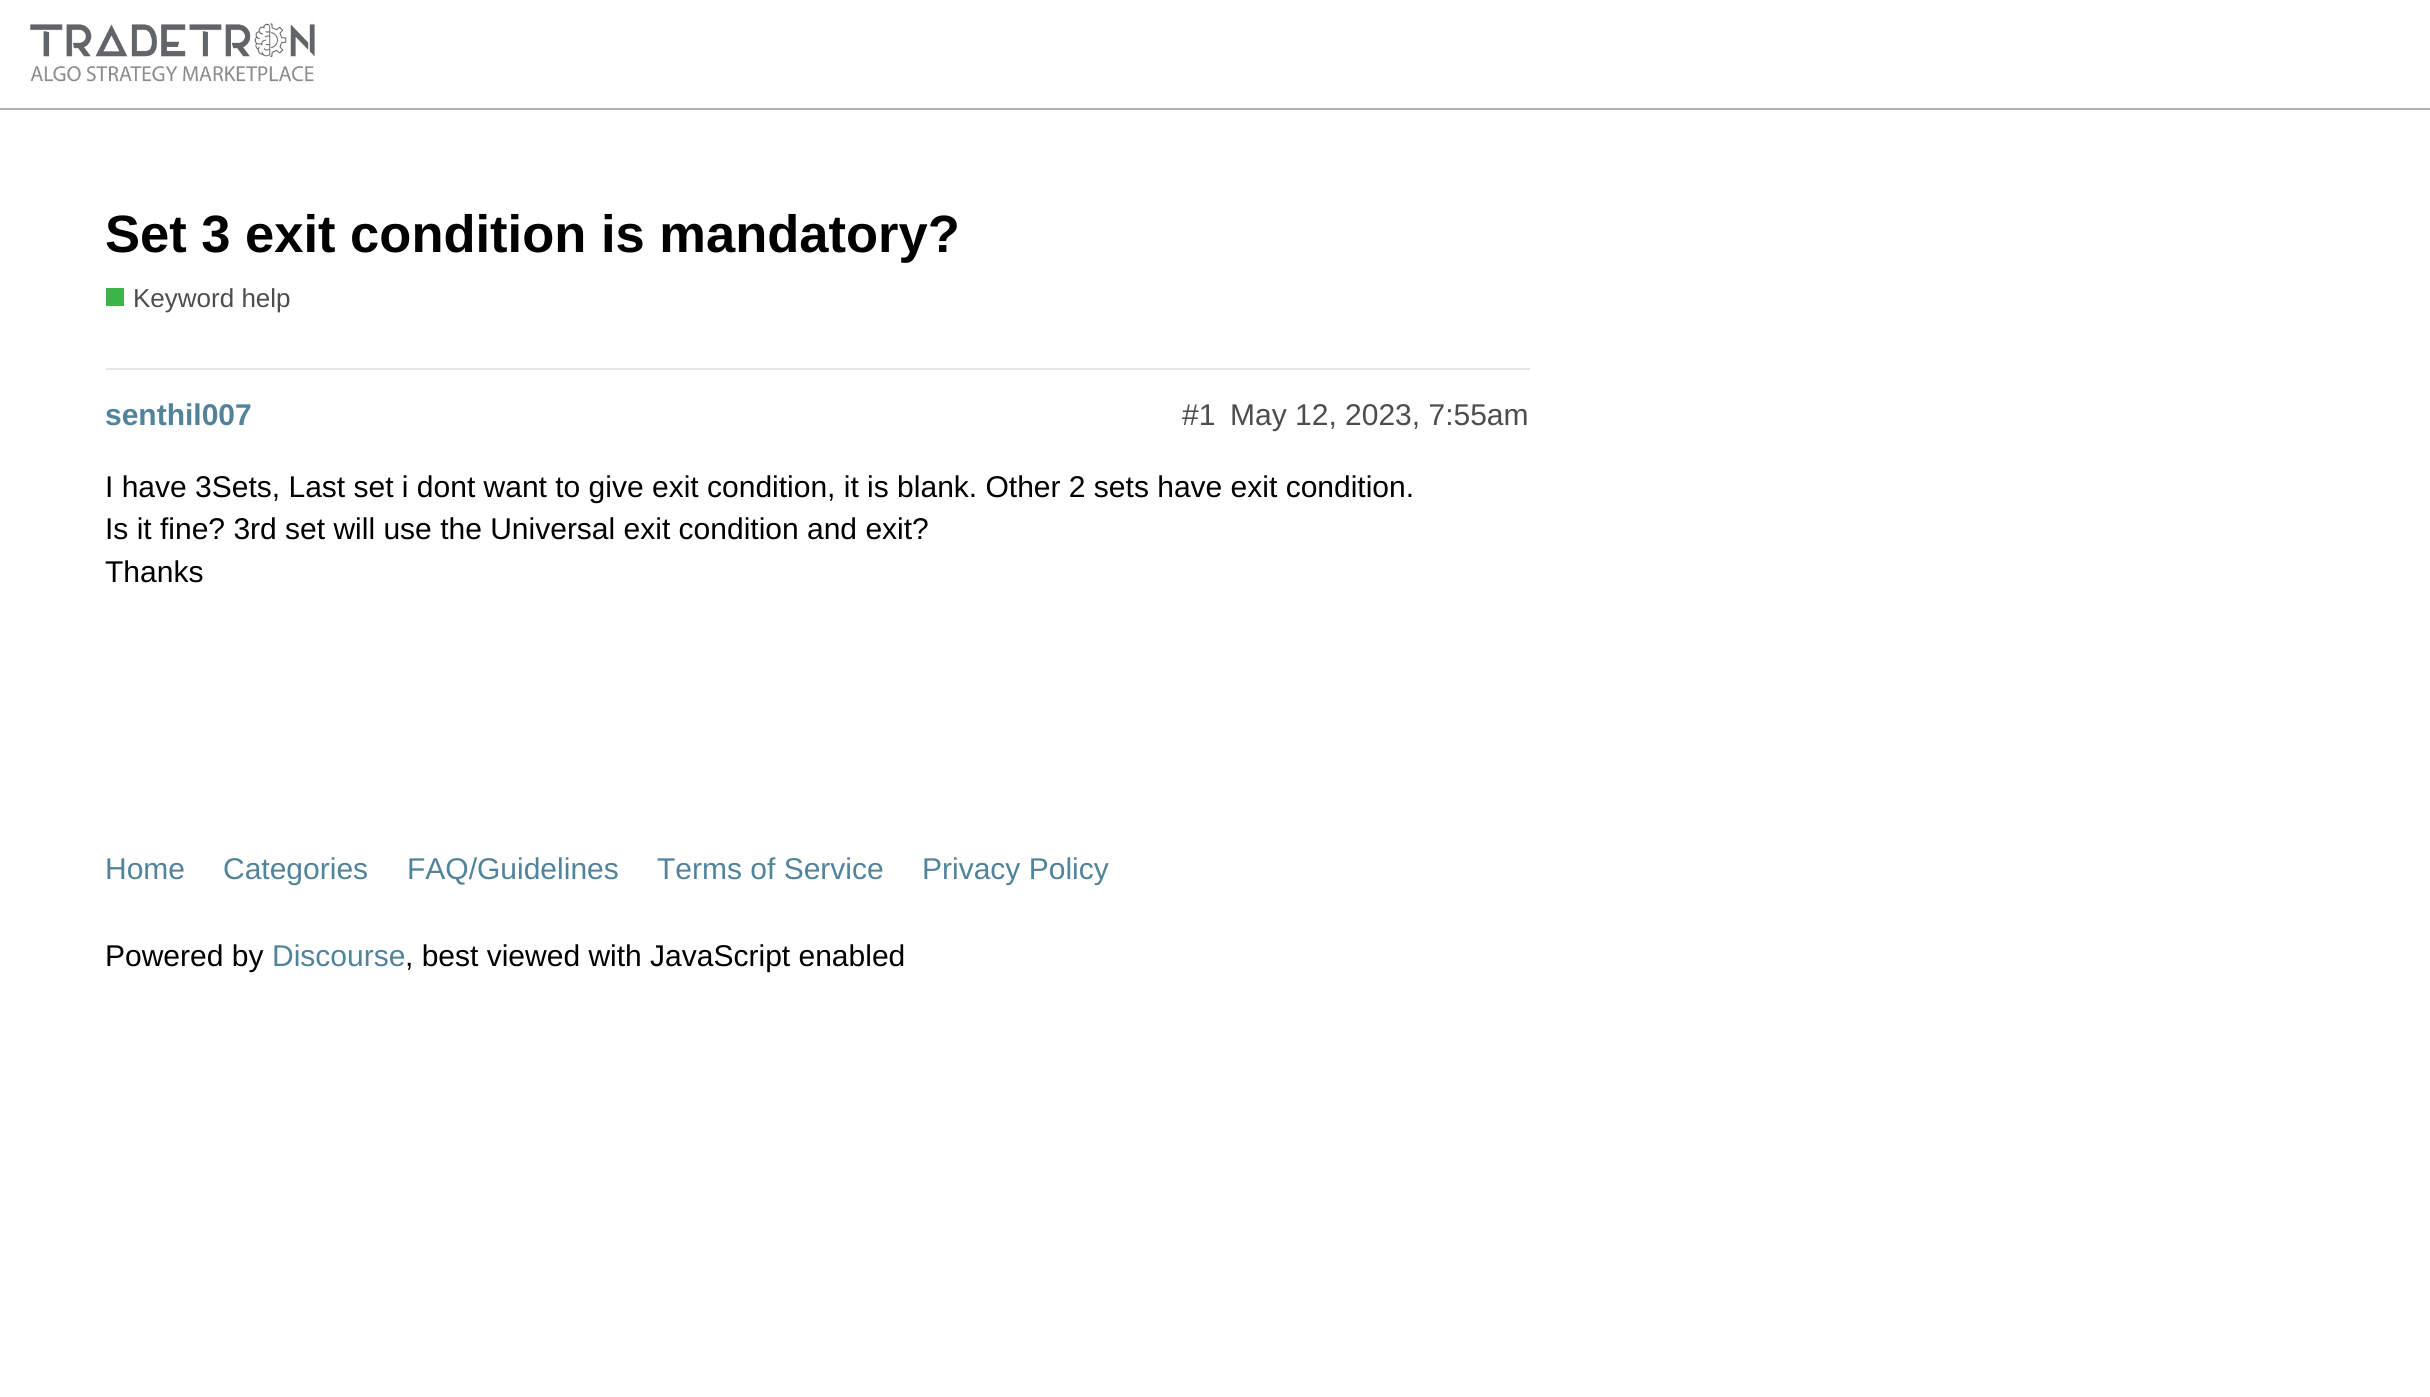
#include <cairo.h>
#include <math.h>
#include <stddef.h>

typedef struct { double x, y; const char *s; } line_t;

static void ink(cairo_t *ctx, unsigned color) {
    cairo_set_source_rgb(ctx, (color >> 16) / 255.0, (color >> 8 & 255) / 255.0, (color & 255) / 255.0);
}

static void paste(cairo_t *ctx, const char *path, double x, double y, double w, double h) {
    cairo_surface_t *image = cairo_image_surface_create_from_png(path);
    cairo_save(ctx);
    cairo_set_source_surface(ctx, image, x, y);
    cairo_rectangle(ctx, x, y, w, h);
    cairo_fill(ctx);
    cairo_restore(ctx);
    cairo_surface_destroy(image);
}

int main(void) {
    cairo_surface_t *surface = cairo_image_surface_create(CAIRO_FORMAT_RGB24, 2430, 1397);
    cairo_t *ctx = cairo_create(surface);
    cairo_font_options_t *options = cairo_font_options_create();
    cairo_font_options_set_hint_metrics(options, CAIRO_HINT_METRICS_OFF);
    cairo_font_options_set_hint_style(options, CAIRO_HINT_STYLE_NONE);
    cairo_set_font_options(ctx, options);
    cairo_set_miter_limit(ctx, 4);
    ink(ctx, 0xFFFFFF);
    cairo_paint(ctx);
    ink(ctx, 0xB3B3B3);
    cairo_rectangle(ctx, 0, 108, 2430, 2);
    cairo_fill(ctx);
    paste(ctx, "media/1.png", 30, 23, 285, 59);
    cairo_select_font_face(ctx, "Liberation Sans", CAIRO_FONT_SLANT_NORMAL, CAIRO_FONT_WEIGHT_BOLD);
    cairo_set_font_size(ctx, 52.5);
    ink(ctx, 0x000000);
    cairo_move_to(ctx, 105, 252);
    cairo_show_text(ctx, "Set 3 exit condition is mandatory?");
    ink(ctx, 0x3AB54A);
    cairo_rectangle(ctx, 106, 288, 18, 18);
    cairo_fill(ctx);
    cairo_select_font_face(ctx, "Liberation Sans", CAIRO_FONT_SLANT_NORMAL, CAIRO_FONT_WEIGHT_NORMAL);
    cairo_set_font_size(ctx, 26);
    ink(ctx, 0x4D4D4D);
    cairo_move_to(ctx, 133, 307);
    cairo_show_text(ctx, "Keyword help");
    ink(ctx, 0xE6E6E6);
    cairo_rectangle(ctx, 106, 368, 1424, 2);
    cairo_fill(ctx);
    cairo_select_font_face(ctx, "Liberation Sans", CAIRO_FONT_SLANT_NORMAL, CAIRO_FONT_WEIGHT_BOLD);
    cairo_set_font_size(ctx, 30);
    ink(ctx, 0x51839B);
    cairo_move_to(ctx, 105, 425);
    cairo_show_text(ctx, "senthil007");
    cairo_select_font_face(ctx, "Liberation Sans", CAIRO_FONT_SLANT_NORMAL, CAIRO_FONT_WEIGHT_NORMAL);
    ink(ctx, 0x4D4D4D);
    cairo_move_to(ctx, 1182, 425);
    cairo_show_text(ctx, "#1");
    cairo_move_to(ctx, 1230, 425);
    cairo_show_text(ctx, "May 12, 2023, 7:55am");
    ink(ctx, 0x000000);
    {
        static const line_t items[] = {
            {105, 497, "I have 3Sets, Last set i dont want to give exit condition, it is blank. Other 2 sets have exit condition."},
            {105, 539, "Is it fine? 3rd set will use the Universal exit condition and exit?"},
            {105, 582, "Thanks"},
        };
        for (size_t i = 0; i < sizeof items / sizeof *items; i++) {
            cairo_move_to(ctx, items[i].x, items[i].y);
            cairo_show_text(ctx, items[i].s);
        }
    }
    ink(ctx, 0x51839B);
    {
        static const line_t items[] = {
            {105, 879, "Home"},
            {223, 879, "Categories"},
            {407, 879, "FAQ/Guidelines"},
            {657, 879, "Terms of Service"},
            {922, 879, "Privacy Policy"},
        };
        for (size_t i = 0; i < sizeof items / sizeof *items; i++) {
            cairo_move_to(ctx, items[i].x, items[i].y);
            cairo_show_text(ctx, items[i].s);
        }
    }
    ink(ctx, 0x000000);
    cairo_move_to(ctx, 105, 966);
    cairo_show_text(ctx, "Powered by");
    ink(ctx, 0x51839B);
    cairo_move_to(ctx, 272, 966);
    cairo_show_text(ctx, "Discourse");
    ink(ctx, 0x000000);
    cairo_move_to(ctx, 405, 966);
    cairo_show_text(ctx, ", best viewed with JavaScript enabled");
    cairo_surface_write_to_png(surface, "image.png");
    cairo_font_options_destroy(options);
    cairo_destroy(ctx);
    cairo_surface_destroy(surface);
    return 0;
}
